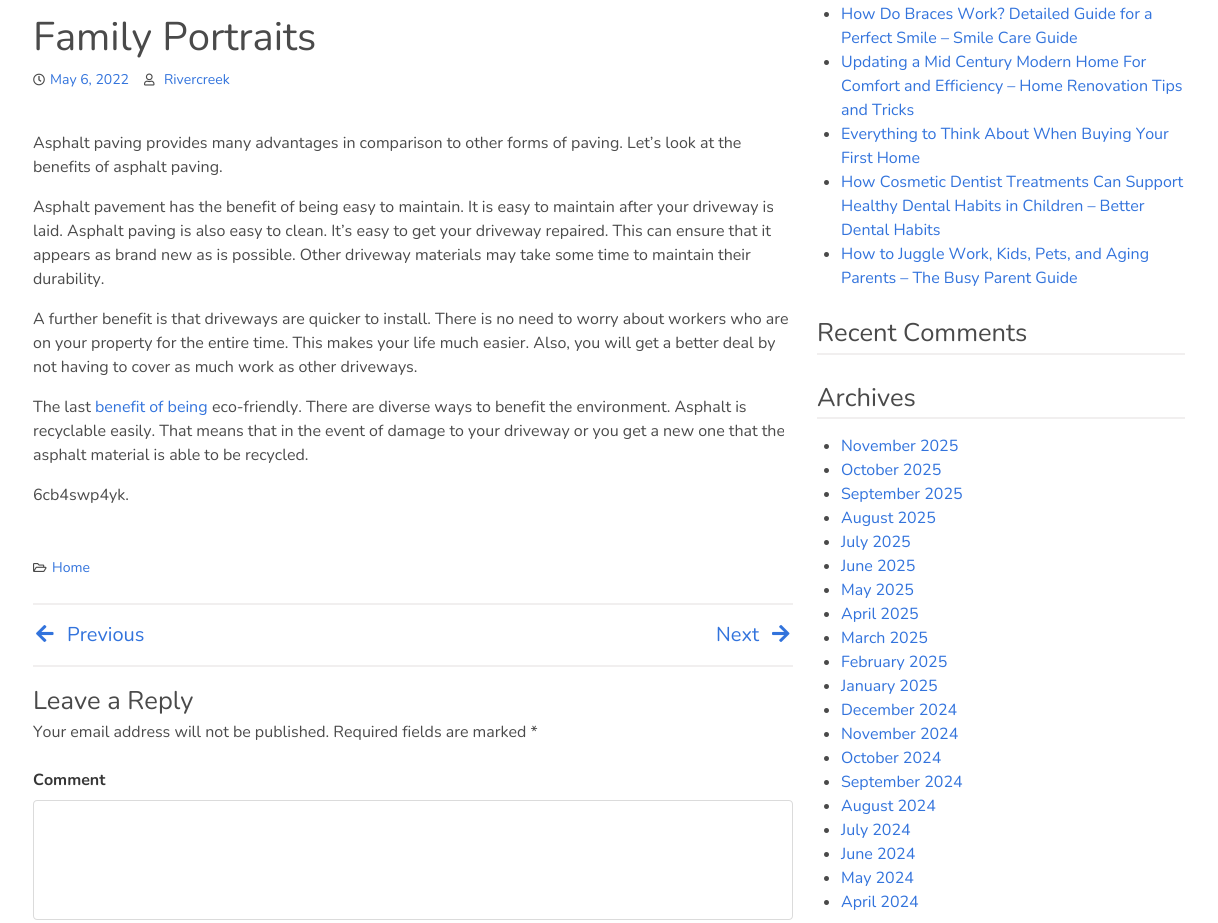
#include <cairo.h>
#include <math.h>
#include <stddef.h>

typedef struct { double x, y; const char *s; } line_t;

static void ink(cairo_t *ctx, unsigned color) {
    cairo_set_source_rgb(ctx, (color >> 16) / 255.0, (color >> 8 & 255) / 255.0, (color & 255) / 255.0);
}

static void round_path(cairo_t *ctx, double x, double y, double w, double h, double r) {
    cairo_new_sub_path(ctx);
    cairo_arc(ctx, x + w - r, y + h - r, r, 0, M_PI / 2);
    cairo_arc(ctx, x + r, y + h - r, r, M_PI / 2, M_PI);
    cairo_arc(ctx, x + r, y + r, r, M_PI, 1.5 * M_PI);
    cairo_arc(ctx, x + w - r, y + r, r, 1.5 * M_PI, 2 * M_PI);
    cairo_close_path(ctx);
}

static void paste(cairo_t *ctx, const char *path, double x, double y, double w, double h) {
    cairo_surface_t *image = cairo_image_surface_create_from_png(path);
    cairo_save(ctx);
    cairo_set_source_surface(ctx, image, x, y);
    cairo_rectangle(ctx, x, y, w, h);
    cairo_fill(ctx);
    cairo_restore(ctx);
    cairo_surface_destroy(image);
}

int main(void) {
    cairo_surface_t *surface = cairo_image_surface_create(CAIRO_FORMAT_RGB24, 1218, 923);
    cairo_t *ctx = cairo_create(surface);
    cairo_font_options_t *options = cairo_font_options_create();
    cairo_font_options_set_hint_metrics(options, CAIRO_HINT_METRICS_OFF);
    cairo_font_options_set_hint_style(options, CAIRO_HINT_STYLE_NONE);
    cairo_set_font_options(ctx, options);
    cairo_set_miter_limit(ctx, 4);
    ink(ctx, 0xFFFFFF);
    cairo_paint(ctx);
    cairo_select_font_face(ctx, "Nunito", CAIRO_FONT_SLANT_NORMAL, CAIRO_FONT_WEIGHT_NORMAL);
    cairo_set_font_size(ctx, 40);
    ink(ctx, 0x4A4A4A);
    cairo_move_to(ctx, 33, 50);
    cairo_show_text(ctx, "Family Portraits");
    paste(ctx, "media/1.png", 33, 73, 12, 13);
    cairo_set_font_size(ctx, 14);
    ink(ctx, 0x3273DC);
    cairo_move_to(ctx, 50, 84);
    cairo_show_text(ctx, "May 6, 2022");
    paste(ctx, "media/2.png", 144, 73, 11, 13);
    cairo_move_to(ctx, 164, 84);
    cairo_show_text(ctx, "Rivercreek");
    cairo_set_font_size(ctx, 16);
    ink(ctx, 0x4A4A4A);
    {
        static const line_t items[] = {
            {33, 148, "Asphalt paving provides many advantages in comparison to other forms of paving. Let’s look at the"},
            {33, 172, "benefits of asphalt paving."},
            {33, 212, "Asphalt pavement has the benefit of being easy to maintain. It is easy to maintain after your driveway is"},
            {33, 236, "laid. Asphalt paving is also easy to clean. It’s easy to get your driveway repaired. This can ensure that it"},
            {33, 260, "appears as brand new as is possible. Other driveway materials may take some time to maintain their"},
            {33, 284, "durability."},
            {33, 324, "A further benefit is that driveways are quicker to install. There is no need to worry about workers who are"},
            {33, 348, "on your property for the entire time. This makes your life much easier. Also, you will get a better deal by"},
            {33, 372, "not having to cover as much work as other driveways."},
            {33, 412, "The last"},
        };
        for (size_t i = 0; i < sizeof items / sizeof *items; i++) {
            cairo_move_to(ctx, items[i].x, items[i].y);
            cairo_show_text(ctx, items[i].s);
        }
    }
    ink(ctx, 0x3273DC);
    cairo_move_to(ctx, 95, 412);
    cairo_show_text(ctx, "benefit of being");
    ink(ctx, 0x4A4A4A);
    {
        static const line_t items[] = {
            {212, 412, "eco-friendly. There are diverse ways to benefit the environment. Asphalt is"},
            {33, 436, "recyclable easily. That means that in the event of damage to your driveway or you get a new one that the"},
            {33, 460, "asphalt material is able to be recycled."},
            {33, 500, "6cb4swp4yk."},
        };
        for (size_t i = 0; i < sizeof items / sizeof *items; i++) {
            cairo_move_to(ctx, items[i].x, items[i].y);
            cairo_show_text(ctx, items[i].s);
        }
    }
    paste(ctx, "media/3.png", 33, 563, 14, 9);
    cairo_set_font_size(ctx, 14);
    ink(ctx, 0x3273DC);
    cairo_move_to(ctx, 52, 572);
    cairo_show_text(ctx, "Home");
    ink(ctx, 0xF1EFEF);
    cairo_rectangle(ctx, 33, 603, 760, 2);
    cairo_fill(ctx);
    cairo_rectangle(ctx, 33, 665, 760, 2);
    cairo_fill(ctx);
    paste(ctx, "media/4.png", 36, 625, 18, 17);
    cairo_set_font_size(ctx, 20);
    ink(ctx, 0x3273DC);
    cairo_move_to(ctx, 67, 641);
    cairo_show_text(ctx, "Previous");
    cairo_move_to(ctx, 716, 641);
    cairo_show_text(ctx, "Next");
    paste(ctx, "media/5.png", 772, 625, 18, 17);
    cairo_set_font_size(ctx, 25.5);
    ink(ctx, 0x4A4A4A);
    cairo_move_to(ctx, 33, 709);
    cairo_show_text(ctx, "Leave a Reply");
    cairo_set_font_size(ctx, 16);
    cairo_move_to(ctx, 33, 737);
    cairo_show_text(ctx, "Your email address will not be published. Required fields are marked *");
    cairo_select_font_face(ctx, "Nunito", CAIRO_FONT_SLANT_NORMAL, CAIRO_FONT_WEIGHT_BOLD);
    ink(ctx, 0x363636);
    cairo_move_to(ctx, 33, 785);
    cairo_show_text(ctx, "Comment");
    round_path(ctx, 33.5, 800.5, 759, 119, 3.5);
    ink(ctx, 0xDBDBDB);
    cairo_set_line_width(ctx, 1);
    cairo_stroke(ctx);
    ink(ctx, 0x4A4A4A);
    cairo_arc(ctx, 826.5, 14.5, 2.5, 0, 2 * M_PI);
    cairo_fill(ctx);
    cairo_select_font_face(ctx, "Nunito", CAIRO_FONT_SLANT_NORMAL, CAIRO_FONT_WEIGHT_NORMAL);
    ink(ctx, 0x3273DC);
    cairo_move_to(ctx, 841, 19);
    cairo_show_text(ctx, "How Do Braces Work? Detailed Guide for a");
    cairo_move_to(ctx, 841, 43);
    cairo_show_text(ctx, "Perfect Smile – Smile Care Guide");
    ink(ctx, 0x4A4A4A);
    cairo_new_path(ctx);
    cairo_arc(ctx, 826.5, 62.5, 2.5, 0, 2 * M_PI);
    cairo_fill(ctx);
    ink(ctx, 0x3273DC);
    {
        static const line_t items[] = {
            {841, 67, "Updating a Mid Century Modern Home For"},
            {841, 91, "Comfort and Efficiency – Home Renovation Tips"},
            {841, 115, "and Tricks"},
        };
        for (size_t i = 0; i < sizeof items / sizeof *items; i++) {
            cairo_move_to(ctx, items[i].x, items[i].y);
            cairo_show_text(ctx, items[i].s);
        }
    }
    ink(ctx, 0x4A4A4A);
    cairo_new_path(ctx);
    cairo_arc(ctx, 826.5, 134.5, 2.5, 0, 2 * M_PI);
    cairo_fill(ctx);
    ink(ctx, 0x3273DC);
    cairo_move_to(ctx, 841, 139);
    cairo_show_text(ctx, "Everything to Think About When Buying Your");
    cairo_move_to(ctx, 841, 163);
    cairo_show_text(ctx, "First Home");
    ink(ctx, 0x4A4A4A);
    cairo_new_path(ctx);
    cairo_arc(ctx, 826.5, 182.5, 2.5, 0, 2 * M_PI);
    cairo_fill(ctx);
    ink(ctx, 0x3273DC);
    {
        static const line_t items[] = {
            {841, 187, "How Cosmetic Dentist Treatments Can Support"},
            {841, 211, "Healthy Dental Habits in Children – Better"},
            {841, 235, "Dental Habits"},
        };
        for (size_t i = 0; i < sizeof items / sizeof *items; i++) {
            cairo_move_to(ctx, items[i].x, items[i].y);
            cairo_show_text(ctx, items[i].s);
        }
    }
    ink(ctx, 0x4A4A4A);
    cairo_new_path(ctx);
    cairo_arc(ctx, 826.5, 254.5, 2.5, 0, 2 * M_PI);
    cairo_fill(ctx);
    ink(ctx, 0x3273DC);
    cairo_move_to(ctx, 841, 259);
    cairo_show_text(ctx, "How to Juggle Work, Kids, Pets, and Aging");
    cairo_move_to(ctx, 841, 283);
    cairo_show_text(ctx, "Parents – The Busy Parent Guide");
    ink(ctx, 0xF1EFEF);
    cairo_rectangle(ctx, 817, 353, 368, 2);
    cairo_fill(ctx);
    cairo_set_font_size(ctx, 25.5);
    ink(ctx, 0x4A4A4A);
    cairo_move_to(ctx, 817, 341);
    cairo_show_text(ctx, "Recent Comments");
    ink(ctx, 0xF1EFEF);
    cairo_rectangle(ctx, 817, 417, 368, 2);
    cairo_fill(ctx);
    ink(ctx, 0x4A4A4A);
    cairo_move_to(ctx, 817, 406);
    cairo_show_text(ctx, "Archives");
    cairo_new_path(ctx);
    cairo_arc(ctx, 826.5, 446.5, 2.5, 0, 2 * M_PI);
    cairo_fill(ctx);
    cairo_set_font_size(ctx, 16);
    ink(ctx, 0x3273DC);
    cairo_move_to(ctx, 841, 451);
    cairo_show_text(ctx, "November 2025");
    ink(ctx, 0x4A4A4A);
    cairo_new_path(ctx);
    cairo_arc(ctx, 826.5, 470.5, 2.5, 0, 2 * M_PI);
    cairo_fill(ctx);
    ink(ctx, 0x3273DC);
    cairo_move_to(ctx, 841, 475);
    cairo_show_text(ctx, "October 2025");
    ink(ctx, 0x4A4A4A);
    cairo_new_path(ctx);
    cairo_arc(ctx, 826.5, 494.5, 2.5, 0, 2 * M_PI);
    cairo_fill(ctx);
    ink(ctx, 0x3273DC);
    cairo_move_to(ctx, 841, 499);
    cairo_show_text(ctx, "September 2025");
    ink(ctx, 0x4A4A4A);
    cairo_new_path(ctx);
    cairo_arc(ctx, 826.5, 518.5, 2.5, 0, 2 * M_PI);
    cairo_fill(ctx);
    ink(ctx, 0x3273DC);
    cairo_move_to(ctx, 841, 523);
    cairo_show_text(ctx, "August 2025");
    ink(ctx, 0x4A4A4A);
    cairo_new_path(ctx);
    cairo_arc(ctx, 826.5, 542.5, 2.5, 0, 2 * M_PI);
    cairo_fill(ctx);
    ink(ctx, 0x3273DC);
    cairo_move_to(ctx, 841, 547);
    cairo_show_text(ctx, "July 2025");
    ink(ctx, 0x4A4A4A);
    cairo_new_path(ctx);
    cairo_arc(ctx, 826.5, 566.5, 2.5, 0, 2 * M_PI);
    cairo_fill(ctx);
    ink(ctx, 0x3273DC);
    cairo_move_to(ctx, 841, 571);
    cairo_show_text(ctx, "June 2025");
    ink(ctx, 0x4A4A4A);
    cairo_new_path(ctx);
    cairo_arc(ctx, 826.5, 590.5, 2.5, 0, 2 * M_PI);
    cairo_fill(ctx);
    ink(ctx, 0x3273DC);
    cairo_move_to(ctx, 841, 595);
    cairo_show_text(ctx, "May 2025");
    ink(ctx, 0x4A4A4A);
    cairo_new_path(ctx);
    cairo_arc(ctx, 826.5, 614.5, 2.5, 0, 2 * M_PI);
    cairo_fill(ctx);
    ink(ctx, 0x3273DC);
    cairo_move_to(ctx, 841, 619);
    cairo_show_text(ctx, "April 2025");
    ink(ctx, 0x4A4A4A);
    cairo_new_path(ctx);
    cairo_arc(ctx, 826.5, 638.5, 2.5, 0, 2 * M_PI);
    cairo_fill(ctx);
    ink(ctx, 0x3273DC);
    cairo_move_to(ctx, 841, 643);
    cairo_show_text(ctx, "March 2025");
    ink(ctx, 0x4A4A4A);
    cairo_new_path(ctx);
    cairo_arc(ctx, 826.5, 662.5, 2.5, 0, 2 * M_PI);
    cairo_fill(ctx);
    ink(ctx, 0x3273DC);
    cairo_move_to(ctx, 841, 667);
    cairo_show_text(ctx, "February 2025");
    ink(ctx, 0x4A4A4A);
    cairo_new_path(ctx);
    cairo_arc(ctx, 826.5, 686.5, 2.5, 0, 2 * M_PI);
    cairo_fill(ctx);
    ink(ctx, 0x3273DC);
    cairo_move_to(ctx, 841, 691);
    cairo_show_text(ctx, "January 2025");
    ink(ctx, 0x4A4A4A);
    cairo_new_path(ctx);
    cairo_arc(ctx, 826.5, 710.5, 2.5, 0, 2 * M_PI);
    cairo_fill(ctx);
    ink(ctx, 0x3273DC);
    cairo_move_to(ctx, 841, 715);
    cairo_show_text(ctx, "December 2024");
    ink(ctx, 0x4A4A4A);
    cairo_new_path(ctx);
    cairo_arc(ctx, 826.5, 734.5, 2.5, 0, 2 * M_PI);
    cairo_fill(ctx);
    ink(ctx, 0x3273DC);
    cairo_move_to(ctx, 841, 739);
    cairo_show_text(ctx, "November 2024");
    ink(ctx, 0x4A4A4A);
    cairo_new_path(ctx);
    cairo_arc(ctx, 826.5, 758.5, 2.5, 0, 2 * M_PI);
    cairo_fill(ctx);
    ink(ctx, 0x3273DC);
    cairo_move_to(ctx, 841, 763);
    cairo_show_text(ctx, "October 2024");
    ink(ctx, 0x4A4A4A);
    cairo_new_path(ctx);
    cairo_arc(ctx, 826.5, 782.5, 2.5, 0, 2 * M_PI);
    cairo_fill(ctx);
    ink(ctx, 0x3273DC);
    cairo_move_to(ctx, 841, 787);
    cairo_show_text(ctx, "September 2024");
    ink(ctx, 0x4A4A4A);
    cairo_new_path(ctx);
    cairo_arc(ctx, 826.5, 806.5, 2.5, 0, 2 * M_PI);
    cairo_fill(ctx);
    ink(ctx, 0x3273DC);
    cairo_move_to(ctx, 841, 811);
    cairo_show_text(ctx, "August 2024");
    ink(ctx, 0x4A4A4A);
    cairo_new_path(ctx);
    cairo_arc(ctx, 826.5, 830.5, 2.5, 0, 2 * M_PI);
    cairo_fill(ctx);
    ink(ctx, 0x3273DC);
    cairo_move_to(ctx, 841, 835);
    cairo_show_text(ctx, "July 2024");
    ink(ctx, 0x4A4A4A);
    cairo_new_path(ctx);
    cairo_arc(ctx, 826.5, 854.5, 2.5, 0, 2 * M_PI);
    cairo_fill(ctx);
    ink(ctx, 0x3273DC);
    cairo_move_to(ctx, 841, 859);
    cairo_show_text(ctx, "June 2024");
    ink(ctx, 0x4A4A4A);
    cairo_new_path(ctx);
    cairo_arc(ctx, 826.5, 878.5, 2.5, 0, 2 * M_PI);
    cairo_fill(ctx);
    ink(ctx, 0x3273DC);
    cairo_move_to(ctx, 841, 883);
    cairo_show_text(ctx, "May 2024");
    ink(ctx, 0x4A4A4A);
    cairo_new_path(ctx);
    cairo_arc(ctx, 826.5, 902.5, 2.5, 0, 2 * M_PI);
    cairo_fill(ctx);
    ink(ctx, 0x3273DC);
    cairo_move_to(ctx, 841, 907);
    cairo_show_text(ctx, "April 2024");
    cairo_surface_write_to_png(surface, "image.png");
    cairo_font_options_destroy(options);
    cairo_destroy(ctx);
    cairo_surface_destroy(surface);
    return 0;
}
